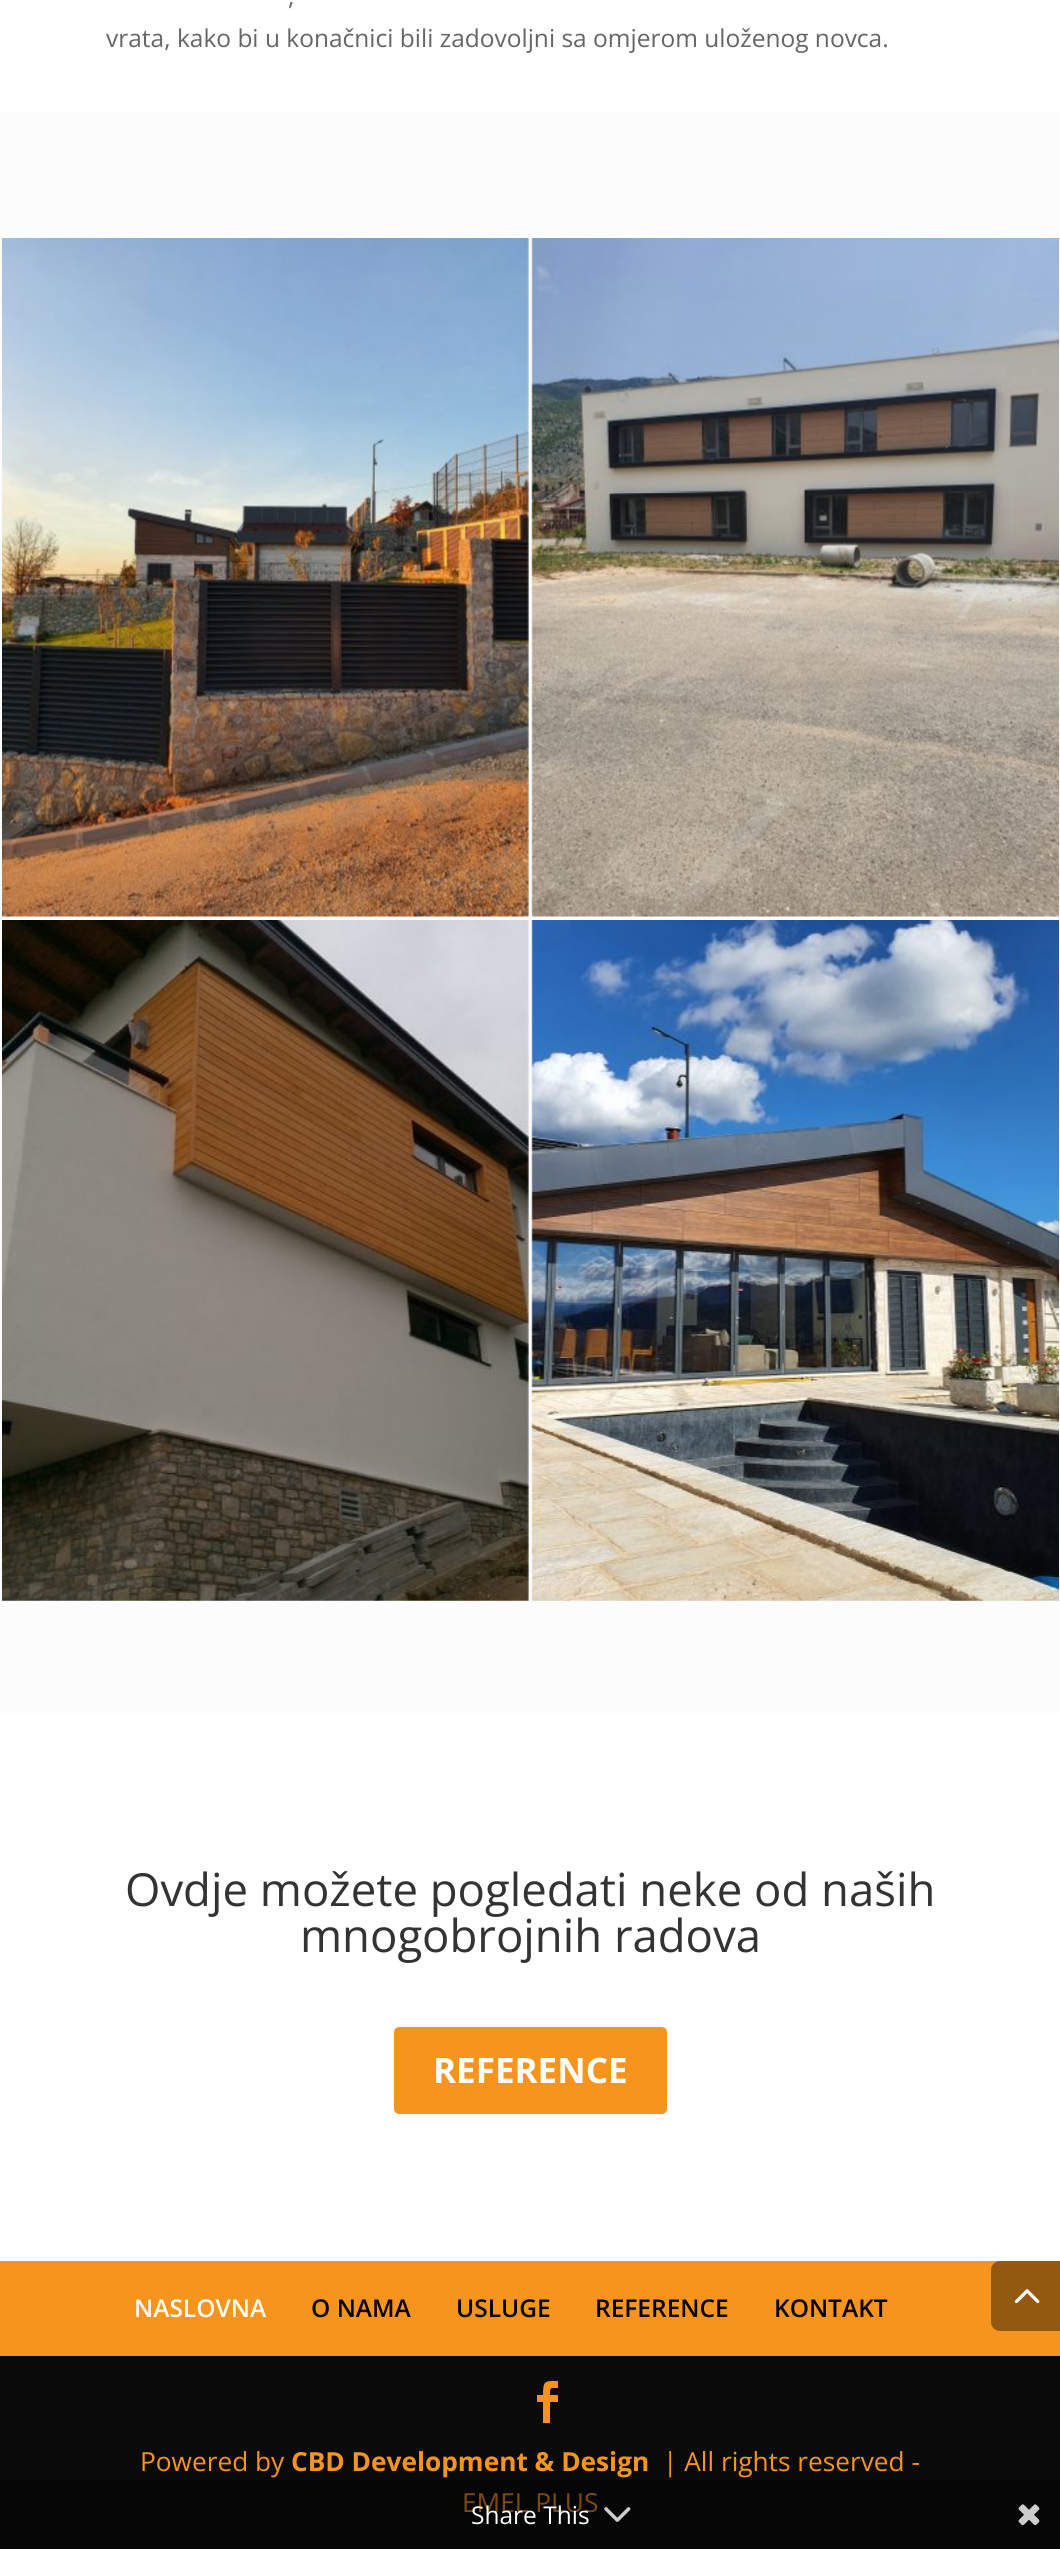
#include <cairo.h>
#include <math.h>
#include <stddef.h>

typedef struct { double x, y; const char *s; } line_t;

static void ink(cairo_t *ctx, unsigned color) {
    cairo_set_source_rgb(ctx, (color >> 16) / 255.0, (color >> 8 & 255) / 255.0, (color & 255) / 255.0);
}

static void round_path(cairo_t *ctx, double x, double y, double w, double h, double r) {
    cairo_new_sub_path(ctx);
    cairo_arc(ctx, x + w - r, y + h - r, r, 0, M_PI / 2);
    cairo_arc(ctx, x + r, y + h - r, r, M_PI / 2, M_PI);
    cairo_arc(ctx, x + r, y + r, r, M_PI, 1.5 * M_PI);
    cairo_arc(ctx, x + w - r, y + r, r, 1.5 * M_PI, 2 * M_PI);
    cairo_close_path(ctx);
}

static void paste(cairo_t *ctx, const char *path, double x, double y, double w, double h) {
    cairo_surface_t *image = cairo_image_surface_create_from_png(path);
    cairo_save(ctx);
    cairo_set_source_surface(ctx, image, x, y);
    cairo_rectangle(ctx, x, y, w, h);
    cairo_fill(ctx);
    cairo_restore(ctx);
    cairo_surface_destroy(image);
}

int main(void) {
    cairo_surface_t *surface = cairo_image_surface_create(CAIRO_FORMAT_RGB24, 1060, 2549);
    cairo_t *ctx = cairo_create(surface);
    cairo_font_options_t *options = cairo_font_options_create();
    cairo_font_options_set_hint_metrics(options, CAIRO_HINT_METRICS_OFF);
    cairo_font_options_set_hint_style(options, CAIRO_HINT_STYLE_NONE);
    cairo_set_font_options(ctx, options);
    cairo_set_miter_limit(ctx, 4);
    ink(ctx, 0xF7941D);
    cairo_paint(ctx);
    ink(ctx, 0xFFFFFF);
    cairo_rectangle(ctx, 0, 0, 1060, 112);
    cairo_fill(ctx);
    cairo_select_font_face(ctx, "Open Sans", CAIRO_FONT_SLANT_NORMAL, CAIRO_FONT_WEIGHT_NORMAL);
    cairo_set_font_size(ctx, 24.5);
    ink(ctx, 0x666666);
    cairo_move_to(ctx, 288, 5);
    cairo_show_text(ctx, ",");
    cairo_move_to(ctx, 106, 47);
    cairo_show_text(ctx, "vrata, kako bi u konačnici bili zadovoljni sa omjerom uloženog novca.");
    ink(ctx, 0xFCFCFC);
    cairo_rectangle(ctx, 0, 112, 1060, 1601);
    cairo_fill(ctx);
    paste(ctx, "media/1.png", 2, 238, 527, 679);
    paste(ctx, "media/2.png", 531, 238, 528, 679);
    paste(ctx, "media/3.png", 2, 920, 527, 681);
    paste(ctx, "media/4.png", 531, 920, 528, 681);
    ink(ctx, 0xFFFFFF);
    cairo_rectangle(ctx, 0, 1713, 1060, 548);
    cairo_fill(ctx);
    cairo_set_font_size(ctx, 45.5);
    ink(ctx, 0x333333);
    cairo_move_to(ctx, 125, 1906);
    cairo_show_text(ctx, "Ovdje možete pogledati neke od naših");
    cairo_move_to(ctx, 300, 1952);
    cairo_show_text(ctx, "mnogobrojnih radova");
    ink(ctx, 0xF7941D);
    round_path(ctx, 396, 2029, 269, 83, 3);
    cairo_fill_preserve(ctx);
    cairo_set_line_width(ctx, 4);
    cairo_stroke(ctx);
    cairo_select_font_face(ctx, "Open Sans", CAIRO_FONT_SLANT_NORMAL, CAIRO_FONT_WEIGHT_BOLD);
    cairo_set_font_size(ctx, 35);
    ink(ctx, 0xFFFFFF);
    cairo_move_to(ctx, 433, 2083);
    cairo_show_text(ctx, "REFERENCE");
    cairo_select_font_face(ctx, "Open Sans SemiBold", CAIRO_FONT_SLANT_NORMAL, CAIRO_FONT_WEIGHT_NORMAL);
    cairo_set_font_size(ctx, 24.5);
    cairo_move_to(ctx, 134, 2317);
    cairo_show_text(ctx, "NASLOVNA");
    ink(ctx, 0x000000);
    {
        static const line_t items[] = {
            {311, 2317, "O NAMA"},
            {456, 2317, "USLUGE"},
            {595, 2317, "REFERENCE"},
            {774, 2317, "KONTAKT"},
        };
        for (size_t i = 0; i < sizeof items / sizeof *items; i++) {
            cairo_move_to(ctx, items[i].x, items[i].y);
            cairo_show_text(ctx, items[i].s);
        }
    }
    ink(ctx, 0x0A0A0A);
    cairo_rectangle(ctx, 0, 2356, 1060, 124);
    cairo_fill(ctx);
    ink(ctx, 0x050505);
    cairo_rectangle(ctx, 0, 2480, 1060, 69);
    cairo_fill(ctx);
    ink(ctx, 0xF7941D);
    cairo_new_path(ctx);
    cairo_move_to(ctx, 543, 2423);
    cairo_line_to(ctx, 550, 2423);
    cairo_line_to(ctx, 550, 2402);
    cairo_line_to(ctx, 558, 2402);
    cairo_line_to(ctx, 558, 2395);
    cairo_line_to(ctx, 550, 2395);
    cairo_curve_to(ctx, 550, 2387, 550, 2388, 558, 2388);
    cairo_line_to(ctx, 558, 2381);
    cairo_curve_to(ctx, 545, 2381, 543, 2380, 543, 2395);
    cairo_line_to(ctx, 537, 2395);
    cairo_line_to(ctx, 537, 2402);
    cairo_line_to(ctx, 543, 2402);
    cairo_close_path(ctx);
    cairo_fill(ctx);
    cairo_select_font_face(ctx, "Open Sans", CAIRO_FONT_SLANT_NORMAL, CAIRO_FONT_WEIGHT_NORMAL);
    cairo_set_font_size(ctx, 26.25);
    cairo_move_to(ctx, 140, 2471);
    cairo_show_text(ctx, "Powered by");
    cairo_select_font_face(ctx, "Open Sans", CAIRO_FONT_SLANT_NORMAL, CAIRO_FONT_WEIGHT_BOLD);
    cairo_move_to(ctx, 291, 2471);
    cairo_show_text(ctx, "CBD Development & Design");
    cairo_select_font_face(ctx, "Open Sans", CAIRO_FONT_SLANT_NORMAL, CAIRO_FONT_WEIGHT_NORMAL);
    cairo_move_to(ctx, 663, 2471);
    cairo_show_text(ctx, "| All rights reserved -");
    ink(ctx, 0x7C4A0F);
    cairo_move_to(ctx, 462, 2512);
    cairo_show_text(ctx, "EMEL PLUS");
    ink(ctx, 0x945911);
    cairo_new_path(ctx);
    cairo_move_to(ctx, 1000, 2261);
    cairo_line_to(ctx, 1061, 2261);
    cairo_line_to(ctx, 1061, 2331);
    cairo_line_to(ctx, 1000, 2331);
    cairo_curve_to(ctx, 995, 2331, 991, 2327, 991, 2322);
    cairo_line_to(ctx, 991, 2270);
    cairo_curve_to(ctx, 991, 2265, 995, 2261, 1000, 2261);
    cairo_close_path(ctx);
    cairo_fill(ctx);
    paste(ctx, "media/5.png", 1014, 2289, 26, 15);
    cairo_set_font_size(ctx, 24.5);
    ink(ctx, 0xFFFFFF);
    cairo_move_to(ctx, 471, 2524);
    cairo_show_text(ctx, "Share This");
    paste(ctx, "media/6.png", 604, 2507, 27, 15);
    paste(ctx, "media/7.png", 1018, 2504, 22, 22);
    cairo_surface_write_to_png(surface, "image.png");
    cairo_font_options_destroy(options);
    cairo_destroy(ctx);
    cairo_surface_destroy(surface);
    return 0;
}
